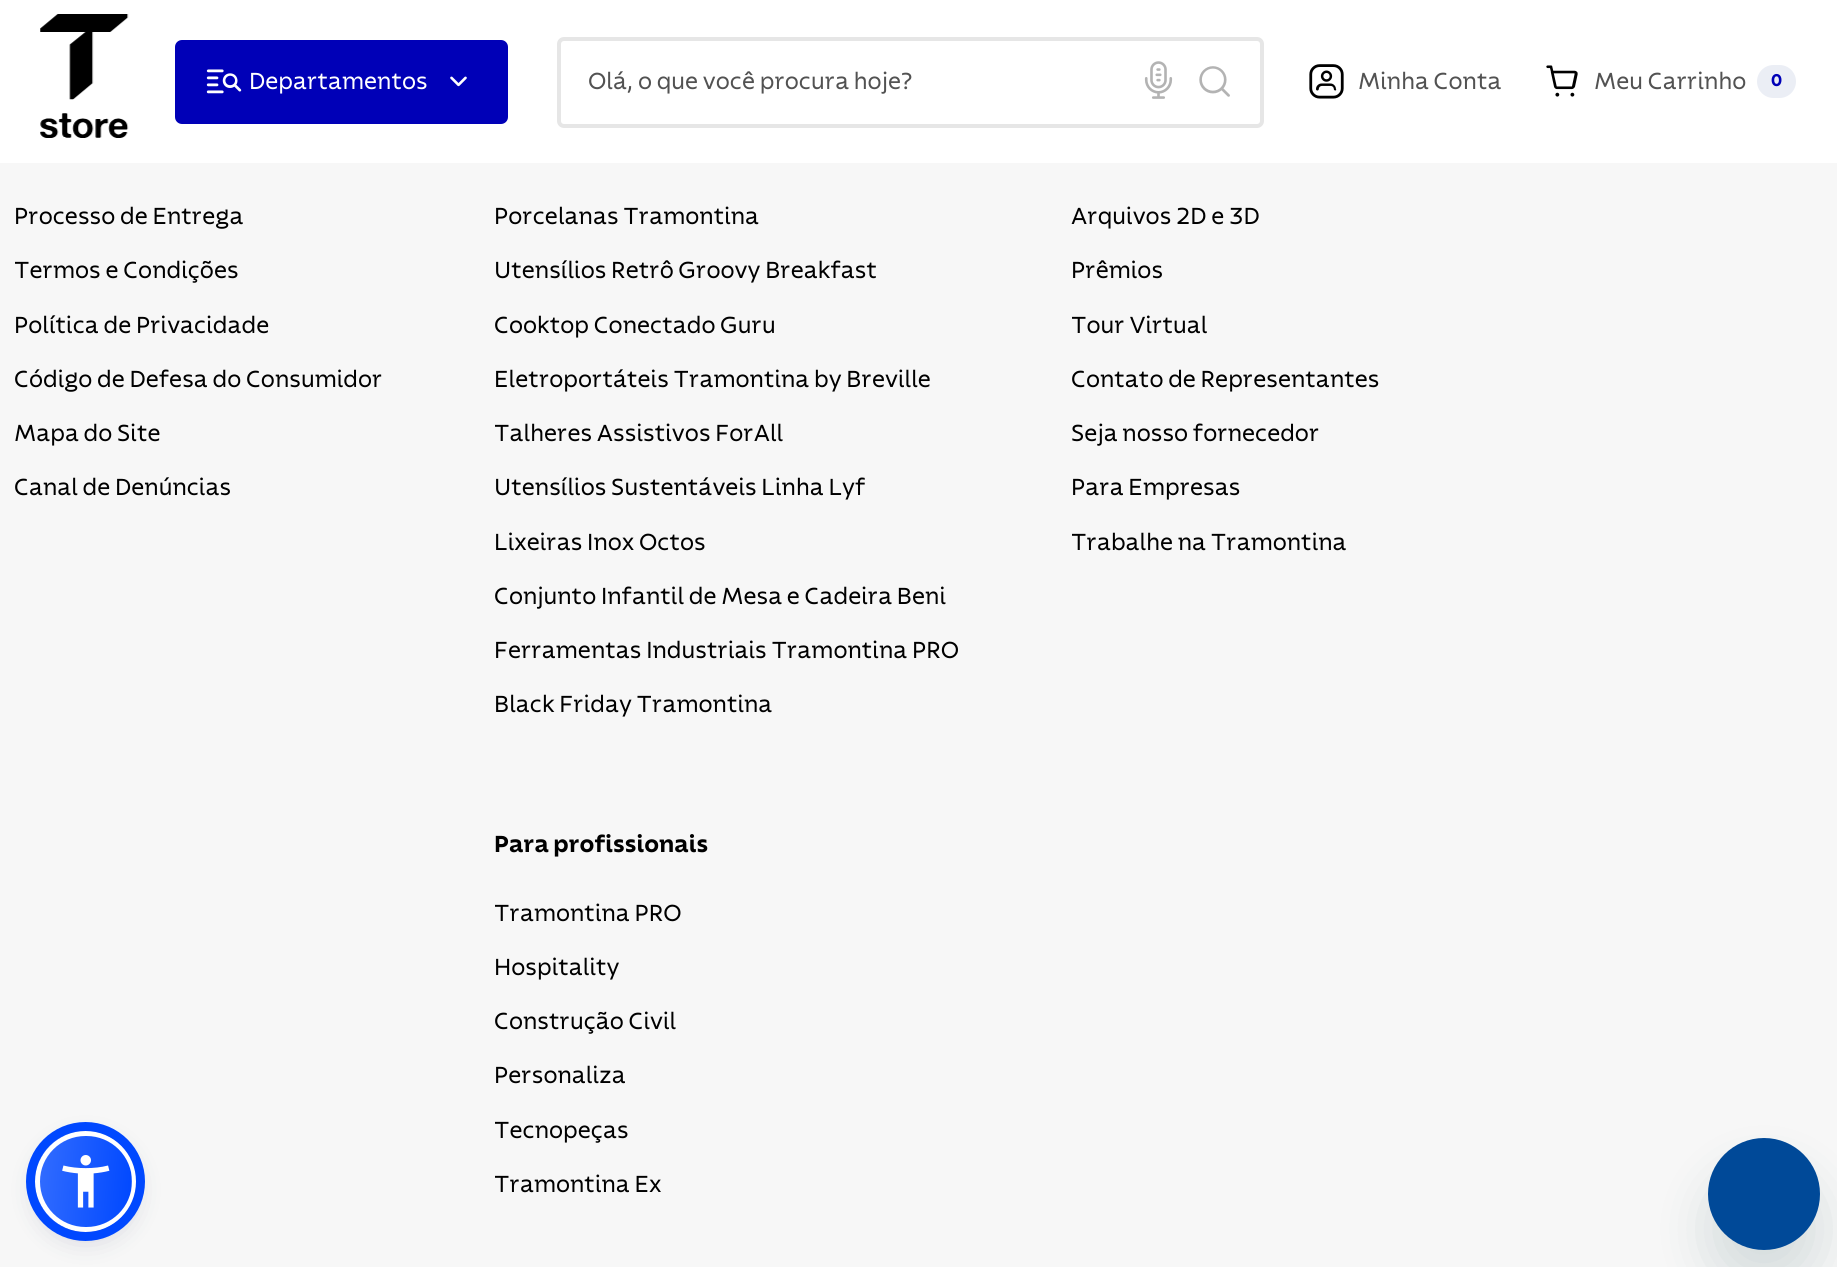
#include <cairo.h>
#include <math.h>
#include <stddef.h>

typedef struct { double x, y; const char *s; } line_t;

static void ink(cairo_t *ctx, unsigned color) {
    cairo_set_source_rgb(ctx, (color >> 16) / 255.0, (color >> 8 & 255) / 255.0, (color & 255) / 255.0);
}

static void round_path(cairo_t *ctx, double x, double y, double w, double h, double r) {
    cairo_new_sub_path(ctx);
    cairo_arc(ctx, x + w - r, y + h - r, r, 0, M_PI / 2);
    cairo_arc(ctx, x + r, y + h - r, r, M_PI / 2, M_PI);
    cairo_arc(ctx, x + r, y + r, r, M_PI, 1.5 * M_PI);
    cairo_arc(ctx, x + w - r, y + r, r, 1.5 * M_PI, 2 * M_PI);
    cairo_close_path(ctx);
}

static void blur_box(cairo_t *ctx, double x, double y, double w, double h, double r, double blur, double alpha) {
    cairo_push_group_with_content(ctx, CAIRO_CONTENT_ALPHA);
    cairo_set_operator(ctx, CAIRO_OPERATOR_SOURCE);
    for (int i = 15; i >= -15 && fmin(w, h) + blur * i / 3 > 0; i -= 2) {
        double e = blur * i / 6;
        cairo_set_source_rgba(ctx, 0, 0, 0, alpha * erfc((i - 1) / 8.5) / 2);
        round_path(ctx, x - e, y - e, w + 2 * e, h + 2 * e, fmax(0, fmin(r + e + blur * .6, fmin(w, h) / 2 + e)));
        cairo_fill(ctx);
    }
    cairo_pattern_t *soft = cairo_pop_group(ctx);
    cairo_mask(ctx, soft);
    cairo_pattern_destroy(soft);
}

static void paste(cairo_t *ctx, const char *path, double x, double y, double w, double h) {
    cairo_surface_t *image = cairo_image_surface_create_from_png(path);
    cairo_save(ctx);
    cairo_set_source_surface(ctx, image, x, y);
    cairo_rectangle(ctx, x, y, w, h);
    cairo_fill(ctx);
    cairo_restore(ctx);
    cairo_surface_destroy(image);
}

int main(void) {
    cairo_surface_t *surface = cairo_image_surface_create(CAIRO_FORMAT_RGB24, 1837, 1267);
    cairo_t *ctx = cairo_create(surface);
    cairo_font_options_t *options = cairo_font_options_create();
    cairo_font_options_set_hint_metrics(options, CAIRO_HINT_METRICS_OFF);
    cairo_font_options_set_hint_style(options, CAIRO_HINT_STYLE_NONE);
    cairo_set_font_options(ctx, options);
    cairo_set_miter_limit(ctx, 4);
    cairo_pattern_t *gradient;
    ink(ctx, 0xF7F7F7);
    cairo_paint(ctx);
    ink(ctx, 0xFFFFFF);
    cairo_rectangle(ctx, 0, 0, 1837, 163);
    cairo_fill(ctx);
    paste(ctx, "media/1.png", 40, 14, 89, 124);
    ink(ctx, 0x0000B7);
    round_path(ctx, 175, 40, 333, 84, 7);
    cairo_fill(ctx);
    paste(ctx, "media/2.png", 206, 69, 36, 25);
    cairo_select_font_face(ctx, "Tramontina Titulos", CAIRO_FONT_SLANT_NORMAL, CAIRO_FONT_WEIGHT_NORMAL);
    cairo_set_font_size(ctx, 24.5);
    ink(ctx, 0xFFFFFF);
    cairo_move_to(ctx, 249, 89);
    cairo_show_text(ctx, "Departamentos");
    paste(ctx, "media/3.png", 450, 76, 17, 11);
    round_path(ctx, 559, 39, 703, 87, 5);
    ink(ctx, 0xE6E6E6);
    cairo_set_line_width(ctx, 4);
    cairo_stroke(ctx);
    ink(ctx, 0x525252);
    cairo_move_to(ctx, 588, 89);
    cairo_show_text(ctx, "Olá, o que você procura hoje?");
    paste(ctx, "media/4.png", 1144, 61, 29, 38);
    paste(ctx, "media/5.png", 1199, 66, 31, 31);
    paste(ctx, "media/6.png", 1309, 64, 35, 35);
    cairo_move_to(ctx, 1358, 89);
    cairo_show_text(ctx, "Minha Conta");
    paste(ctx, "media/7.png", 1546, 65, 32, 32);
    cairo_move_to(ctx, 1594, 89);
    cairo_show_text(ctx, "Meu Carrinho");
    ink(ctx, 0xEBEEF5);
    round_path(ctx, 1757, 65, 39, 33, 16.5);
    cairo_fill(ctx);
    cairo_select_font_face(ctx, "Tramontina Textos", CAIRO_FONT_SLANT_NORMAL, CAIRO_FONT_WEIGHT_BOLD);
    cairo_set_font_size(ctx, 18);
    ink(ctx, 0x0000B7);
    cairo_move_to(ctx, 1771, 86);
    cairo_show_text(ctx, "0");
    cairo_select_font_face(ctx, "Tramontina Titulos", CAIRO_FONT_SLANT_NORMAL, CAIRO_FONT_WEIGHT_NORMAL);
    cairo_set_font_size(ctx, 24.5);
    ink(ctx, 0x000000);
    {
        static const line_t items[] = {
            {14, 224, "Processo de Entrega"},
            {14, 278, "Termos e Condições"},
            {14, 333, "Política de Privacidade"},
            {14, 387, "Código de Defesa do Consumidor"},
            {14, 441, "Mapa do Site"},
            {14, 495, "Canal de Denúncias"},
            {494, 224, "Porcelanas Tramontina"},
            {494, 278, "Utensílios Retrô Groovy Breakfast"},
            {494, 333, "Cooktop Conectado Guru"},
            {494, 387, "Eletroportáteis Tramontina by Breville"},
            {494, 441, "Talheres Assistivos ForAll"},
            {494, 495, "Utensílios Sustentáveis Linha Lyf"},
            {494, 550, "Lixeiras Inox Octos"},
            {494, 604, "Conjunto Infantil de Mesa e Cadeira Beni"},
            {494, 658, "Ferramentas Industriais Tramontina PRO"},
            {494, 712, "Black Friday Tramontina"},
        };
        for (size_t i = 0; i < sizeof items / sizeof *items; i++) {
            cairo_move_to(ctx, items[i].x, items[i].y);
            cairo_show_text(ctx, items[i].s);
        }
    }
    cairo_select_font_face(ctx, "Tramontina Titulos", CAIRO_FONT_SLANT_NORMAL, CAIRO_FONT_WEIGHT_BOLD);
    cairo_move_to(ctx, 494, 852);
    cairo_show_text(ctx, "Para profissionais");
    cairo_select_font_face(ctx, "Tramontina Titulos", CAIRO_FONT_SLANT_NORMAL, CAIRO_FONT_WEIGHT_NORMAL);
    {
        static const line_t items[] = {
            {494, 921, "Tramontina PRO"},
            {494, 975, "Hospitality"},
            {494, 1029, "Construção Civil"},
            {494, 1083, "Personaliza"},
            {494, 1138, "Tecnopeças"},
            {494, 1192, "Tramontina Ex"},
            {1071, 224, "Arquivos 2D e 3D"},
            {1071, 278, "Prêmios"},
            {1071, 333, "Tour Virtual"},
            {1071, 387, "Contato de Representantes"},
            {1071, 441, "Seja nosso fornecedor"},
            {1071, 495, "Para Empresas"},
            {1071, 550, "Trabalhe na Tramontina"},
        };
        for (size_t i = 0; i < sizeof items / sizeof *items; i++) {
            cairo_move_to(ctx, items[i].x, items[i].y);
            cairo_show_text(ctx, items[i].s);
        }
    }
    ink(ctx, 0x5D6494);
    blur_box(ctx, 35, 1134, 102, 102, 51, 3.5, 0.2);
    ink(ctx, 0x252C61);
    blur_box(ctx, 35, 1139, 102, 102, 51, 13, 0.15);
    cairo_save(ctx);
    round_path(ctx, 35, 1131, 102, 101, 50.5);
    cairo_clip(ctx);
    gradient = cairo_pattern_create_linear(36, 1176, 135, 1186);
    cairo_pattern_add_color_stop_rgba(gradient, 0, 0.196, 0.424, 1, 1);
    cairo_pattern_add_color_stop_rgba(gradient, 1, 0, 0.282, 1, 1);
    cairo_set_source(ctx, gradient);
    cairo_pattern_destroy(gradient);
    cairo_rectangle(ctx, 40, 1136, 91, 91);
    cairo_fill(ctx);
    gradient = cairo_pattern_create_linear(127, 1176, 226, 1186);
    cairo_pattern_add_color_stop_rgba(gradient, 0, 0.196, 0.424, 1, 1);
    cairo_pattern_add_color_stop_rgba(gradient, 1, 0, 0.282, 1, 1);
    cairo_set_source(ctx, gradient);
    cairo_pattern_destroy(gradient);
    cairo_rectangle(ctx, 131, 1159, 5, 45);
    cairo_fill(ctx);
    cairo_restore(ctx);
    round_path(ctx, 37.5, 1133.5, 97, 96, 48);
    ink(ctx, 0xFFFFFF);
    cairo_set_line_width(ctx, 5);
    cairo_stroke(ctx);
    cairo_arc(ctx, 85.5, 1181.5, 55, 0, 2 * M_PI);
    ink(ctx, 0x0048FF);
    cairo_set_line_width(ctx, 9);
    cairo_stroke(ctx);
    paste(ctx, "media/8.png", 62, 1155, 48, 53);
    ink(ctx, 0x17494D);
    blur_box(ctx, 1708, 1173, 112, 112, 56, 26, 0.15);
    ink(ctx, 0x004998);
    cairo_arc(ctx, 1764, 1194, 56, 0, 2 * M_PI);
    cairo_fill(ctx);
    cairo_surface_write_to_png(surface, "image.png");
    cairo_font_options_destroy(options);
    cairo_destroy(ctx);
    cairo_surface_destroy(surface);
    return 0;
}
